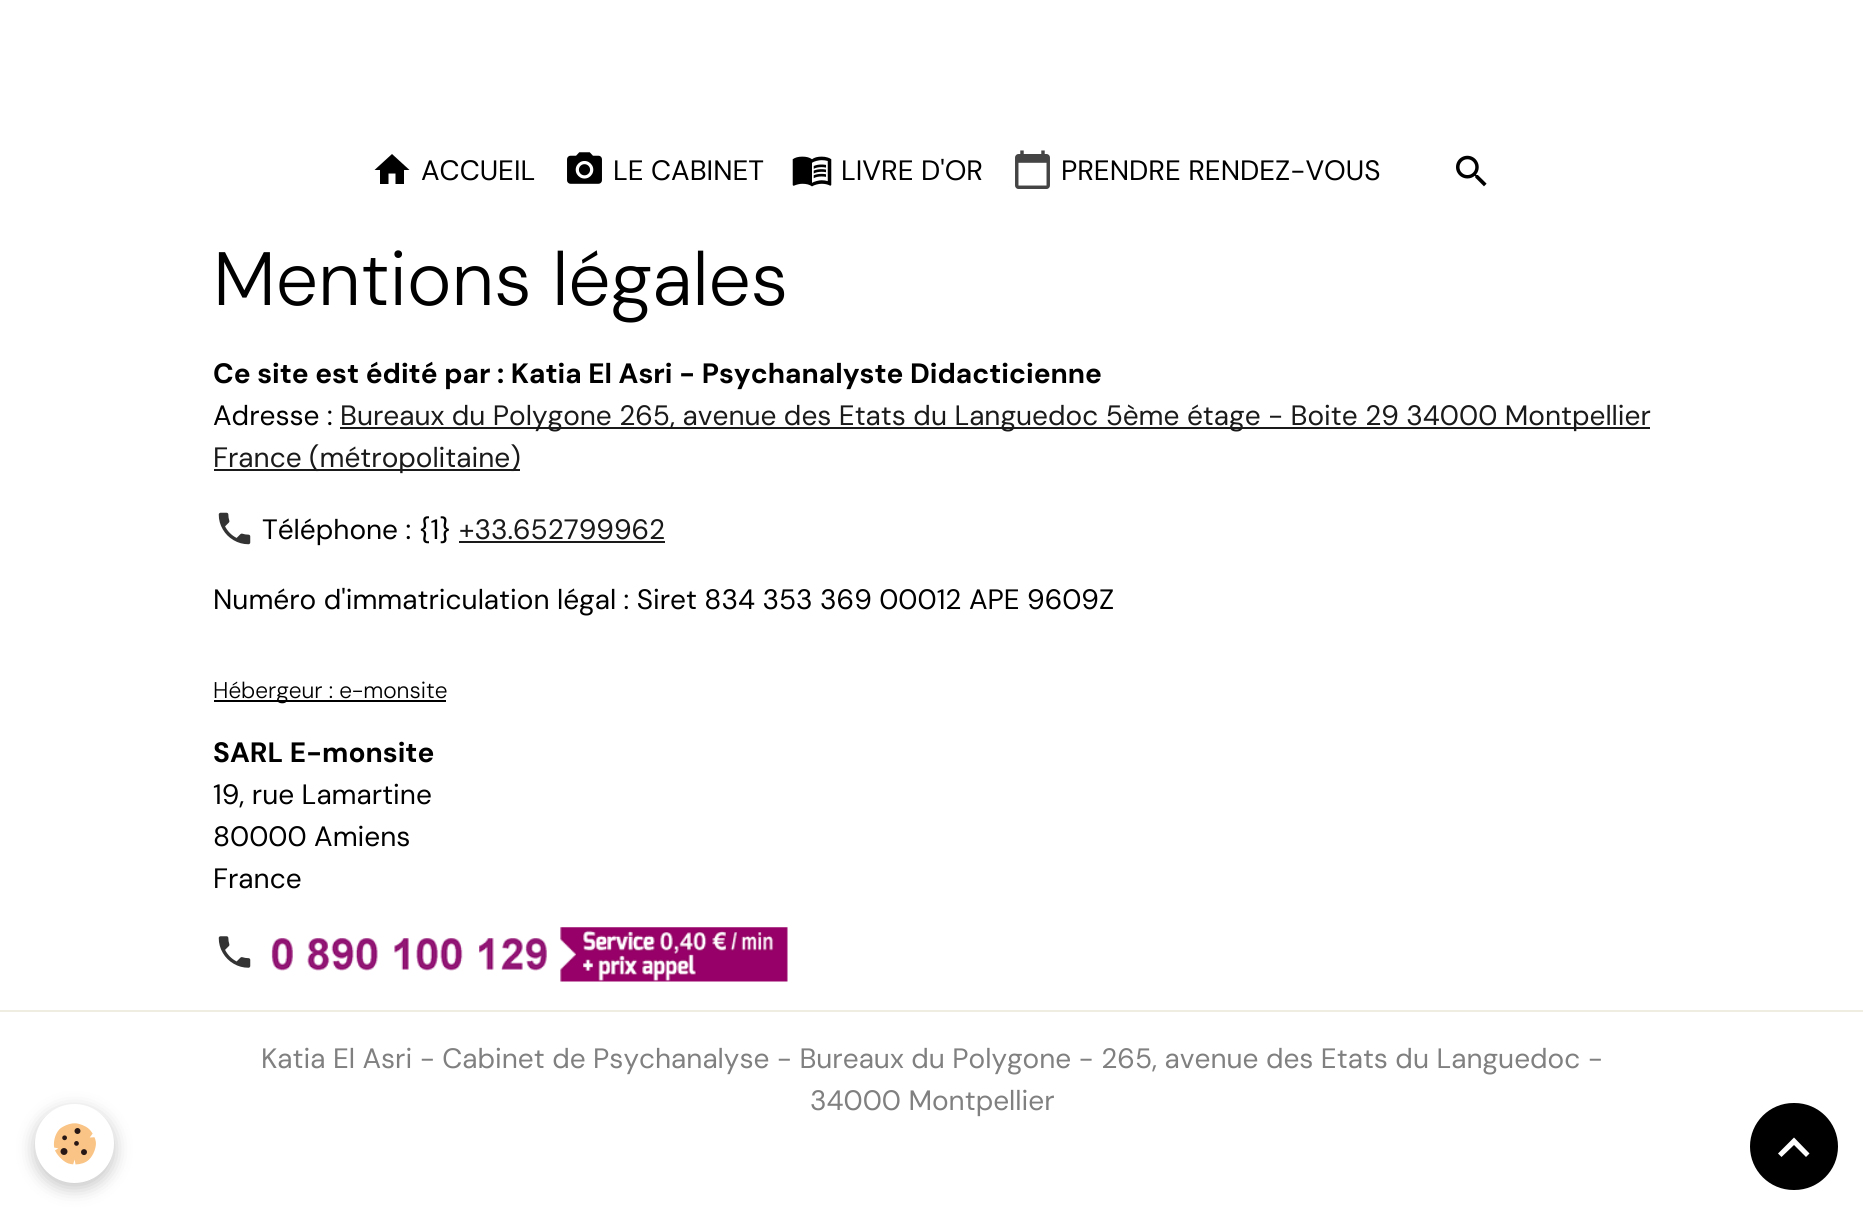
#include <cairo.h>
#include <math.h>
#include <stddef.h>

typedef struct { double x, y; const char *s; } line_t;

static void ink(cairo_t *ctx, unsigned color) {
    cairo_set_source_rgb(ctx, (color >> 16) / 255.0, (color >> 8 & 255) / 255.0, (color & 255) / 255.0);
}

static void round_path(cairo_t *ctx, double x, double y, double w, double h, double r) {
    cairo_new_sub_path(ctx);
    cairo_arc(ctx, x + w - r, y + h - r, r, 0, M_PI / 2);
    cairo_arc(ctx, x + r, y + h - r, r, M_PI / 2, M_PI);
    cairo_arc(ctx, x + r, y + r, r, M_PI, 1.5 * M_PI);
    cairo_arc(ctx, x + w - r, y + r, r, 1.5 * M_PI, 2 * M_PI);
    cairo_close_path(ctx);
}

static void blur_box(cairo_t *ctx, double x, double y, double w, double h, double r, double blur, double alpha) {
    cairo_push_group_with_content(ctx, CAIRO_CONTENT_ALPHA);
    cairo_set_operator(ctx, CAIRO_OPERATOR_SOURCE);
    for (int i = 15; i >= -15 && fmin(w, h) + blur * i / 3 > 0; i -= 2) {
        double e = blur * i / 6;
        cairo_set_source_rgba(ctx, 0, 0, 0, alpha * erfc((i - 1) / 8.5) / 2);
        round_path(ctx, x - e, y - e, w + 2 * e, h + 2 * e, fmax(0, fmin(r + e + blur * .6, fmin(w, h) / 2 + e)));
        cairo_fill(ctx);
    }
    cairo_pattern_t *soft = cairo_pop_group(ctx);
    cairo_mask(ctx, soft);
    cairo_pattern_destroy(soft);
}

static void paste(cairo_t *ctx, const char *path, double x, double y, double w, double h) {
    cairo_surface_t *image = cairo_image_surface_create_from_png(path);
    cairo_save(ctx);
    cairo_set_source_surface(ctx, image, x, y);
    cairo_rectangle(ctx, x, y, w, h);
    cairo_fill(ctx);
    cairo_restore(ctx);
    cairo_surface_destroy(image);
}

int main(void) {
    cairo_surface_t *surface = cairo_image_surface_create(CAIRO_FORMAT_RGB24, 1863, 1216);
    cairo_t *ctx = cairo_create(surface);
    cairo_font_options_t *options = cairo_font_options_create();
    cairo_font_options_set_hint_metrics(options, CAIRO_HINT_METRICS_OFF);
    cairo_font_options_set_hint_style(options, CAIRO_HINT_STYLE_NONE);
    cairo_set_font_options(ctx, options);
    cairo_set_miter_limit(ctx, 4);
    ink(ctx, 0xFFFFFF);
    cairo_paint(ctx);
    ink(ctx, 0x000000);
    cairo_new_path(ctx);
    cairo_move_to(ctx, 388.5, 184);
    cairo_line_to(ctx, 380, 184);
    cairo_line_to(ctx, 380, 170);
    cairo_line_to(ctx, 374.5, 170);
    cairo_line_to(ctx, 392, 154);
    cairo_line_to(ctx, 409.5, 170);
    cairo_line_to(ctx, 404, 170);
    cairo_line_to(ctx, 404, 184);
    cairo_line_to(ctx, 395.5, 184);
    cairo_line_to(ctx, 395.5, 173.5);
    cairo_line_to(ctx, 388.5, 173.5);
    cairo_close_path(ctx);
    cairo_fill(ctx);
    cairo_select_font_face(ctx, "DM Sans", CAIRO_FONT_SLANT_NORMAL, CAIRO_FONT_WEIGHT_NORMAL);
    cairo_set_font_size(ctx, 28);
    cairo_move_to(ctx, 421, 180);
    cairo_show_text(ctx, "ACCUEIL");
    paste(ctx, "media/1.png", 567, 152, 35, 32);
    cairo_move_to(ctx, 613, 180);
    cairo_show_text(ctx, "LE CABINET");
    paste(ctx, "media/2.png", 792, 156, 40, 31);
    cairo_move_to(ctx, 841, 180);
    cairo_show_text(ctx, "LIVRE D'OR");
    paste(ctx, "media/3.png", 1015, 150, 35, 39);
    cairo_move_to(ctx, 1061, 180);
    cairo_show_text(ctx, "PRENDRE RENDEZ-VOUS");
    paste(ctx, "media/4.png", 1456, 155, 31, 32);
    cairo_select_font_face(ctx, "DM Sans Light", CAIRO_FONT_SLANT_NORMAL, CAIRO_FONT_WEIGHT_NORMAL);
    cairo_set_font_size(ctx, 75.5);
    cairo_move_to(ctx, 213, 305);
    cairo_show_text(ctx, "Mentions légales");
    cairo_select_font_face(ctx, "DM Sans", CAIRO_FONT_SLANT_NORMAL, CAIRO_FONT_WEIGHT_BOLD);
    cairo_set_font_size(ctx, 28);
    cairo_move_to(ctx, 213, 383);
    cairo_show_text(ctx, "Ce site est édité par : Katia El Asri - Psychanalyste Didacticienne");
    cairo_select_font_face(ctx, "DM Sans", CAIRO_FONT_SLANT_NORMAL, CAIRO_FONT_WEIGHT_NORMAL);
    cairo_move_to(ctx, 213, 425);
    cairo_show_text(ctx, "Adresse :");
    ink(ctx, 0x1A1A1A);
    cairo_rectangle(ctx, 340, 427, 1310, 2);
    cairo_fill(ctx);
    cairo_move_to(ctx, 340, 425);
    cairo_show_text(ctx, "Bureaux du Polygone 265, avenue des Etats du Languedoc 5ème étage - Boite 29 34000 Montpellier");
    cairo_rectangle(ctx, 214, 469, 306, 2);
    cairo_fill(ctx);
    cairo_move_to(ctx, 213, 467);
    cairo_show_text(ctx, "France (métropolitaine)");
    paste(ctx, "media/5.png", 218, 512, 33, 33);
    ink(ctx, 0x000000);
    cairo_move_to(ctx, 262, 539);
    cairo_show_text(ctx, "Téléphone : {1}");
    ink(ctx, 0x1A1A1A);
    cairo_move_to(ctx, 459, 539);
    cairo_show_text(ctx, "+33.652799962");
    cairo_rectangle(ctx, 459, 541, 206, 2);
    cairo_fill(ctx);
    ink(ctx, 0x000000);
    cairo_move_to(ctx, 213, 609);
    cairo_show_text(ctx, "Numéro d'immatriculation légal : Siret 834 353 369 00012 APE 9609Z");
    cairo_rectangle(ctx, 214, 700, 232, 2);
    cairo_fill(ctx);
    cairo_select_font_face(ctx, "DM Sans Light", CAIRO_FONT_SLANT_NORMAL, CAIRO_FONT_WEIGHT_NORMAL);
    cairo_set_font_size(ctx, 22.75);
    cairo_move_to(ctx, 213, 698);
    cairo_show_text(ctx, "Hébergeur : e-monsite");
    cairo_select_font_face(ctx, "DM Sans", CAIRO_FONT_SLANT_NORMAL, CAIRO_FONT_WEIGHT_BOLD);
    cairo_set_font_size(ctx, 28);
    cairo_move_to(ctx, 213, 762);
    cairo_show_text(ctx, "SARL E-monsite");
    cairo_select_font_face(ctx, "DM Sans", CAIRO_FONT_SLANT_NORMAL, CAIRO_FONT_WEIGHT_NORMAL);
    {
        static const line_t items[] = {
            {213, 804, "19, rue Lamartine"},
            {213, 846, "80000 Amiens"},
            {213, 888, "France"},
        };
        for (size_t i = 0; i < sizeof items / sizeof *items; i++) {
            cairo_move_to(ctx, items[i].x, items[i].y);
            cairo_show_text(ctx, items[i].s);
        }
    }
    paste(ctx, "media/6.png", 218, 936, 33, 32);
    paste(ctx, "media/7.png", 271, 927, 517, 55);
    ink(ctx, 0x000000);
    blur_box(ctx, 35, 1110, 79, 78, 39, 9, 0.24);
    ink(ctx, 0xFFFFFF);
    cairo_arc(ctx, 74.5, 1143.5, 39.5, 0, 2 * M_PI);
    cairo_fill(ctx);
    paste(ctx, "media/8.png", 53, 1123, 43, 42);
    ink(ctx, 0xEFECE2);
    cairo_rectangle(ctx, 0, 1010, 1863, 2);
    cairo_fill(ctx);
    ink(ctx, 0x808080);
    cairo_move_to(ctx, 261, 1068);
    cairo_show_text(ctx, "Katia El Asri - Cabinet de Psychanalyse - Bureaux du Polygone - 265, avenue des Etats du Languedoc -");
    cairo_move_to(ctx, 810, 1110);
    cairo_show_text(ctx, "34000 Montpellier");
    ink(ctx, 0x000000);
    round_path(ctx, 1750, 1103, 88, 87, 43.5);
    cairo_fill(ctx);
    ink(ctx, 0xFFFFFF);
    cairo_new_path(ctx);
    cairo_move_to(ctx, 1794, 1137.5);
    cairo_line_to(ctx, 1809.5, 1153.5);
    cairo_line_to(ctx, 1806, 1157);
    cairo_line_to(ctx, 1794, 1145);
    cairo_line_to(ctx, 1781.5, 1157);
    cairo_line_to(ctx, 1778, 1153.5);
    cairo_close_path(ctx);
    cairo_fill(ctx);
    cairo_surface_write_to_png(surface, "image.png");
    cairo_font_options_destroy(options);
    cairo_destroy(ctx);
    cairo_surface_destroy(surface);
    return 0;
}
